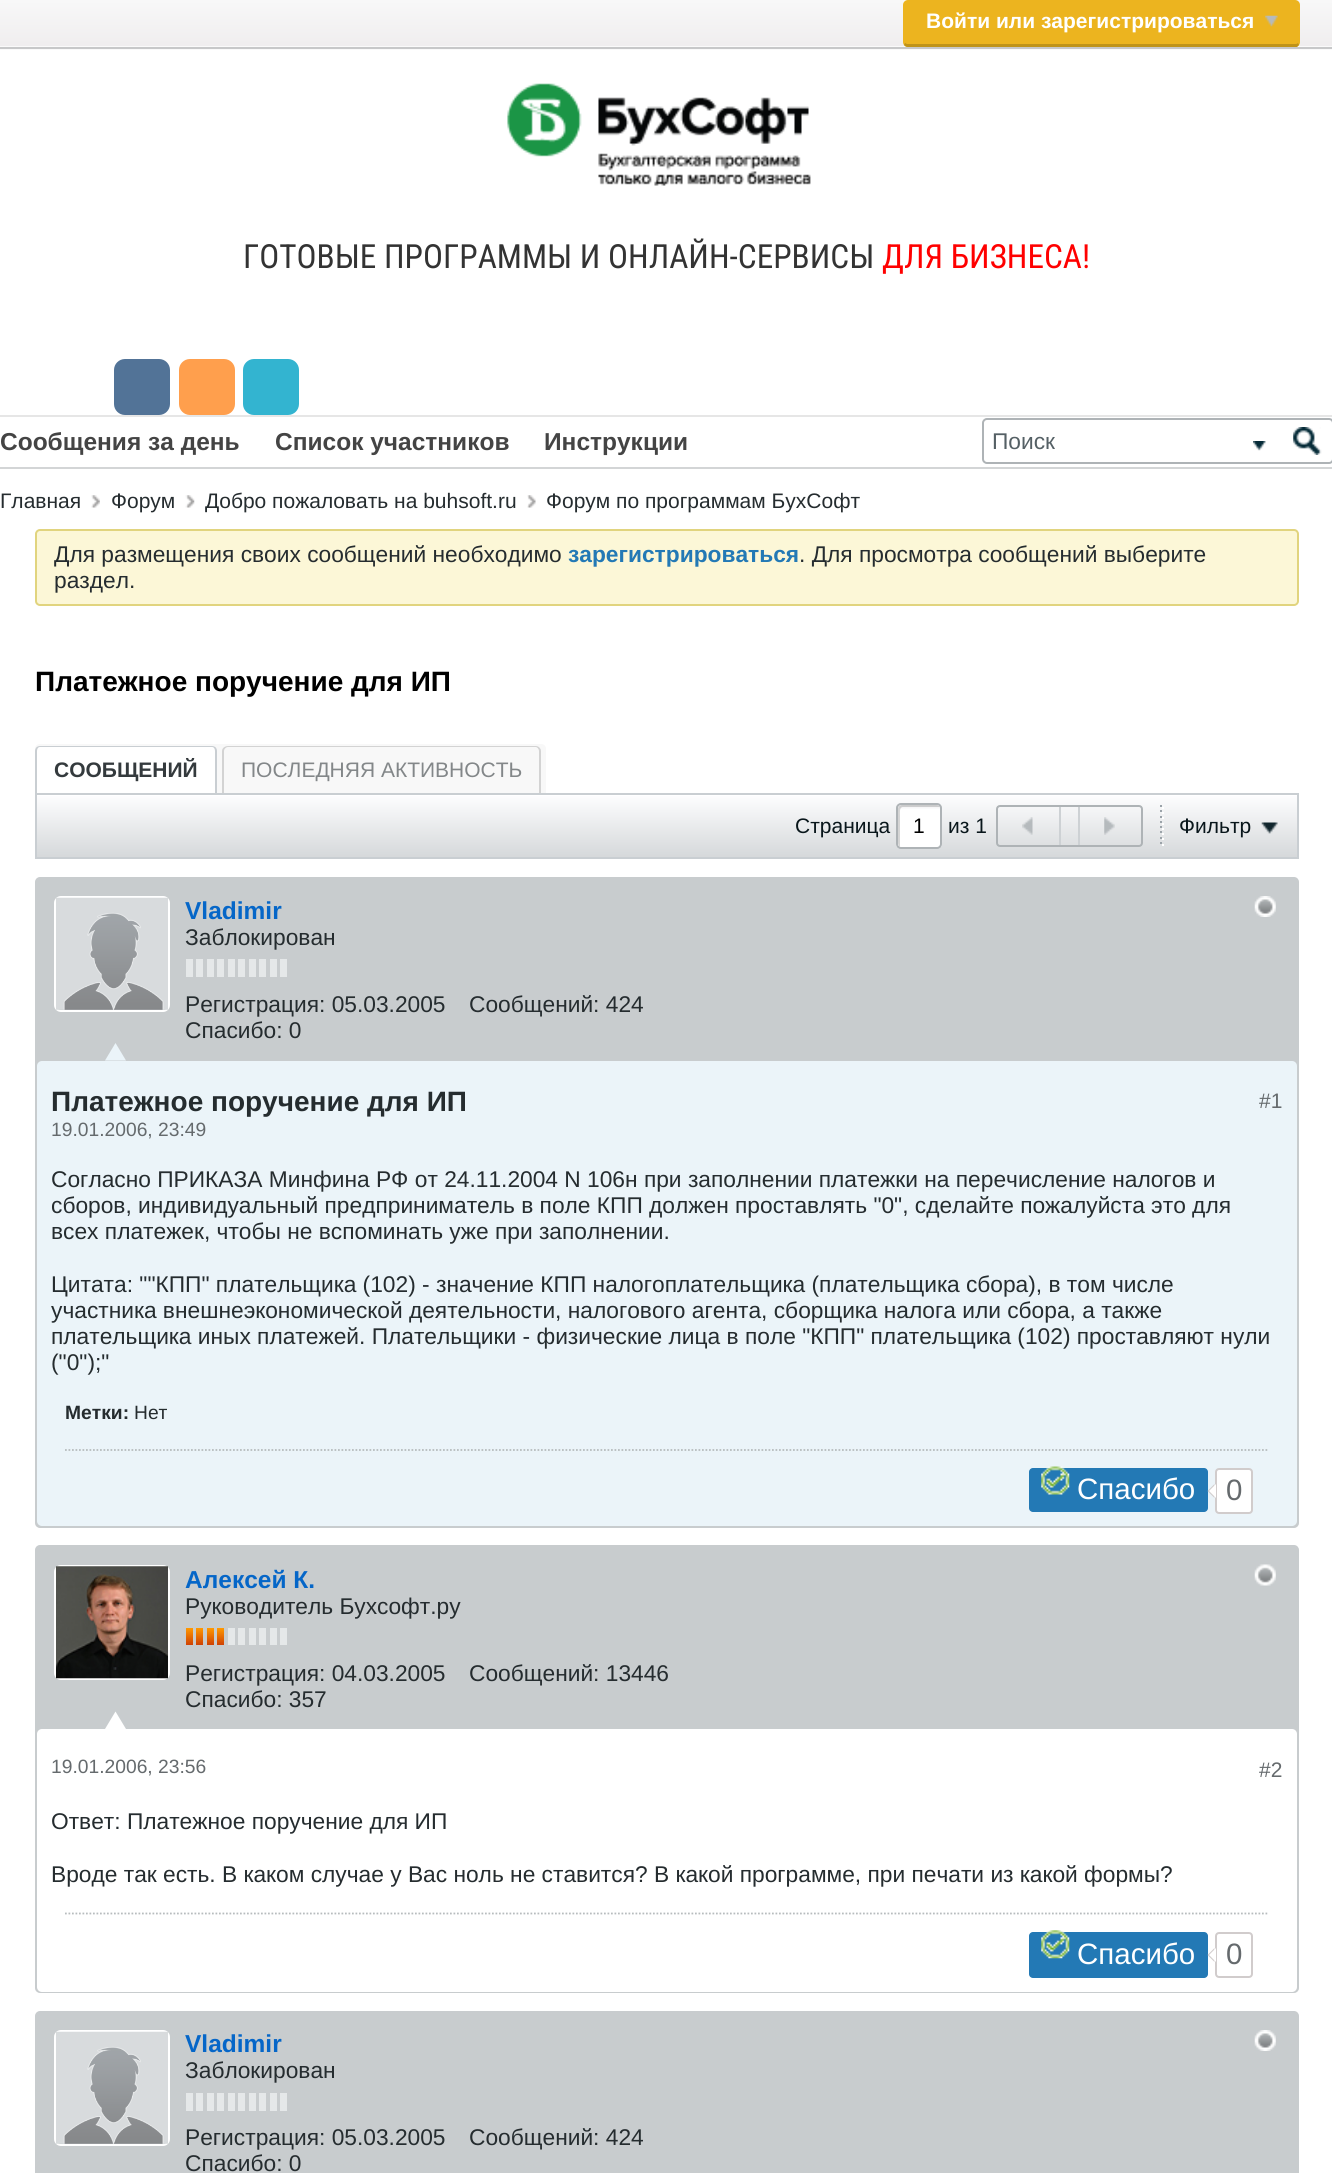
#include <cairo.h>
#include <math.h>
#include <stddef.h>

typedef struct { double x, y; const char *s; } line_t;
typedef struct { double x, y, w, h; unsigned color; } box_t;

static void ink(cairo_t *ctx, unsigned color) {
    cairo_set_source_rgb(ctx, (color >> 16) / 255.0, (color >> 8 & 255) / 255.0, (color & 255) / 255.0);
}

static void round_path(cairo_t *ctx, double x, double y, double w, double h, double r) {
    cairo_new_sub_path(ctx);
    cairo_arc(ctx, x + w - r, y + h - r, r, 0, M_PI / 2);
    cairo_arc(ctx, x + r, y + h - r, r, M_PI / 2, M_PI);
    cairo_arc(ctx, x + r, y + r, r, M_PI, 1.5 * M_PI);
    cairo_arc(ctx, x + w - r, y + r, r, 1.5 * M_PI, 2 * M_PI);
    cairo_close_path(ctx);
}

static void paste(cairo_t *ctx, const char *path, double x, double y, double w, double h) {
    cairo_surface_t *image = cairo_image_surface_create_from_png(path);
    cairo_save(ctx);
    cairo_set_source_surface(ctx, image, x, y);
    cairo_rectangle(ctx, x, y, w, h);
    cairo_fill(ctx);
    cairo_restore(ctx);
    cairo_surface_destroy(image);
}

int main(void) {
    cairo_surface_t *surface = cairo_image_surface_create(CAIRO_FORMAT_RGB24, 1332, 2173);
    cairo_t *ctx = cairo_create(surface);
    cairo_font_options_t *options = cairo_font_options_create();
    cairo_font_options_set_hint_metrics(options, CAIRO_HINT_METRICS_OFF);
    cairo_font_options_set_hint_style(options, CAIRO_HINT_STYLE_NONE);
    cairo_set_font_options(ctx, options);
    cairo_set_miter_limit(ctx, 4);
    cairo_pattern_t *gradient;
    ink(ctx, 0xFFFFFF);
    cairo_paint(ctx);
    gradient = cairo_pattern_create_linear(667, 0, 667, 49);
    cairo_pattern_add_color_stop_rgba(gradient, 0, 0.973, 0.973, 0.973, 1);
    cairo_pattern_add_color_stop_rgba(gradient, 1, 0.937, 0.929, 0.933, 1);
    cairo_set_source(ctx, gradient);
    cairo_pattern_destroy(gradient);
    cairo_rectangle(ctx, 0, 0, 1332, 46);
    cairo_fill(ctx);
    ink(ctx, 0xFAFAFA);
    cairo_rectangle(ctx, 0, 46, 1332, 4);
    cairo_fill(ctx);
    ink(ctx, 0xECB41F);
    round_path(ctx, 903, 0, 397, 47, 5);
    cairo_fill(ctx);
    ink(ctx, 0xBF9319);
    cairo_new_path(ctx);
    cairo_move_to(ctx, 905, 43);
    cairo_line_to(ctx, 907, 44);
    cairo_line_to(ctx, 1295, 44);
    cairo_curve_to(ctx, 1296, 44, 1297, 44, 1298, 43);
    cairo_line_to(ctx, 1299, 45);
    cairo_line_to(ctx, 1297, 47);
    cairo_line_to(ctx, 908, 47);
    cairo_curve_to(ctx, 906, 47, 905, 46, 904, 45);
    cairo_close_path(ctx);
    cairo_fill(ctx);
    cairo_select_font_face(ctx, "Liberation Sans", CAIRO_FONT_SLANT_NORMAL, CAIRO_FONT_WEIGHT_BOLD);
    cairo_set_font_size(ctx, 21);
    ink(ctx, 0xFFFFFF);
    cairo_move_to(ctx, 926, 28);
    cairo_show_text(ctx, "Войти или зарегистрироваться");
    paste(ctx, "media/1.png", 1265, 15, 13, 12);
    ink(ctx, 0xC7C8C9);
    cairo_rectangle(ctx, 0, 47, 1332, 2);
    cairo_fill(ctx);
    ink(ctx, 0xE6E6E6);
    cairo_rectangle(ctx, 0, 415, 1332, 2);
    cairo_fill(ctx);
    paste(ctx, "media/2.png", 507, 83, 304, 103);
    cairo_select_font_face(ctx, "Roboto Condensed", CAIRO_FONT_SLANT_NORMAL, CAIRO_FONT_WEIGHT_NORMAL);
    cairo_set_font_size(ctx, 33.25);
    ink(ctx, 0x333333);
    cairo_move_to(ctx, 243, 268);
    cairo_show_text(ctx, "ГОТОВЫЕ ПРОГРАММЫ И ОНЛАЙН-СЕРВИСЫ");
    ink(ctx, 0xFF0000);
    cairo_move_to(ctx, 882, 268);
    cairo_show_text(ctx, "ДЛЯ БИЗНЕСА!");
    ink(ctx, 0x527397);
    round_path(ctx, 114, 359, 56, 56, 11);
    cairo_fill(ctx);
    ink(ctx, 0xFF9F4D);
    round_path(ctx, 179, 359, 56, 56, 11);
    cairo_fill(ctx);
    ink(ctx, 0x33B4D0);
    round_path(ctx, 243, 359, 56, 56, 11);
    cairo_fill(ctx);
    ink(ctx, 0xD3D5D6);
    cairo_rectangle(ctx, 0, 467, 1332, 2);
    cairo_fill(ctx);
    cairo_select_font_face(ctx, "Liberation Sans", CAIRO_FONT_SLANT_NORMAL, CAIRO_FONT_WEIGHT_BOLD);
    cairo_set_font_size(ctx, 24.5);
    ink(ctx, 0x444444);
    {
        static const line_t items[] = {
            {0, 450, "Сообщения за день"},
            {275, 450, "Список участников"},
            {544, 450, "Инструкции"},
        };
        for (size_t i = 0; i < sizeof items / sizeof *items; i++) {
            cairo_move_to(ctx, items[i].x, items[i].y);
            cairo_show_text(ctx, items[i].s);
        }
    }
    round_path(ctx, 983, 419, 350, 44, 4);
    ink(ctx, 0xAEB3B6);
    cairo_stroke(ctx);
    cairo_select_font_face(ctx, "Liberation Sans", CAIRO_FONT_SLANT_NORMAL, CAIRO_FONT_WEIGHT_NORMAL);
    cairo_set_font_size(ctx, 22.75);
    ink(ctx, 0x556065);
    cairo_move_to(ctx, 992, 449);
    cairo_show_text(ctx, "Поиск");
    paste(ctx, "media/3.png", 1253, 441, 13, 10);
    paste(ctx, "media/4.png", 1293, 427, 29, 28);
    cairo_set_font_size(ctx, 21);
    ink(ctx, 0x252C2F);
    cairo_move_to(ctx, 0, 508);
    cairo_show_text(ctx, "Главная");
    paste(ctx, "media/5.png", 91, 495, 9, 13);
    cairo_move_to(ctx, 111, 508);
    cairo_show_text(ctx, "Форум");
    paste(ctx, "media/6.png", 185, 495, 10, 13);
    cairo_move_to(ctx, 205, 508);
    cairo_show_text(ctx, "Добро пожаловать на buhsoft.ru");
    paste(ctx, "media/7.png", 527, 495, 9, 13);
    cairo_move_to(ctx, 546, 508);
    cairo_show_text(ctx, "Форум по программам БухСофт");
    ink(ctx, 0xFCF7D7);
    round_path(ctx, 36, 530, 1262, 75, 4);
    cairo_fill_preserve(ctx);
    ink(ctx, 0xE1D47E);
    cairo_stroke(ctx);
    cairo_set_font_size(ctx, 22.75);
    ink(ctx, 0x252C2F);
    cairo_move_to(ctx, 54, 562);
    cairo_show_text(ctx, "Для размещения своих сообщений необходимо");
    cairo_select_font_face(ctx, "Liberation Sans", CAIRO_FONT_SLANT_NORMAL, CAIRO_FONT_WEIGHT_BOLD);
    ink(ctx, 0x2379B5);
    cairo_move_to(ctx, 568, 562);
    cairo_show_text(ctx, "зарегистрироваться");
    cairo_select_font_face(ctx, "Liberation Sans", CAIRO_FONT_SLANT_NORMAL, CAIRO_FONT_WEIGHT_NORMAL);
    ink(ctx, 0x252C2F);
    cairo_move_to(ctx, 799, 562);
    cairo_show_text(ctx, ". Для просмотра сообщений выберите");
    cairo_move_to(ctx, 54, 588);
    cairo_show_text(ctx, "раздел.");
    cairo_select_font_face(ctx, "Liberation Sans", CAIRO_FONT_SLANT_NORMAL, CAIRO_FONT_WEIGHT_BOLD);
    cairo_set_font_size(ctx, 28);
    ink(ctx, 0x000000);
    cairo_move_to(ctx, 35, 691);
    cairo_show_text(ctx, "Платежное поручение для ИП");
    ink(ctx, 0xF8F8F8);
    cairo_new_path(ctx);
    cairo_move_to(ctx, 40, 744);
    cairo_line_to(ctx, 541, 744);
    cairo_curve_to(ctx, 544, 744, 546, 746, 546, 749);
    cairo_line_to(ctx, 546, 793);
    cairo_line_to(ctx, 40, 793);
    cairo_curve_to(ctx, 37, 793, 35, 791, 35, 788);
    cairo_line_to(ctx, 35, 749);
    cairo_curve_to(ctx, 35, 746, 37, 744, 40, 744);
    cairo_close_path(ctx);
    cairo_fill(ctx);
    ink(ctx, 0xFFFFFF);
    cairo_new_path(ctx);
    cairo_move_to(ctx, 40, 746);
    cairo_line_to(ctx, 212, 746);
    cairo_curve_to(ctx, 215, 746, 217, 748, 217, 751);
    cairo_line_to(ctx, 217, 793);
    cairo_line_to(ctx, 35, 793);
    cairo_line_to(ctx, 35, 751);
    cairo_curve_to(ctx, 35, 748, 37, 746, 40, 746);
    cairo_close_path(ctx);
    cairo_fill(ctx);
    ink(ctx, 0xC9CED2);
    cairo_set_fill_rule(ctx, CAIRO_FILL_RULE_EVEN_ODD);
    cairo_new_path(ctx);
    cairo_move_to(ctx, 40, 746);
    cairo_line_to(ctx, 212, 746);
    cairo_curve_to(ctx, 215, 746, 217, 748, 217, 751);
    cairo_line_to(ctx, 217, 793);
    cairo_line_to(ctx, 35, 793);
    cairo_line_to(ctx, 35, 751);
    cairo_curve_to(ctx, 35, 748, 37, 746, 40, 746);
    cairo_close_path(ctx);
    cairo_move_to(ctx, 40, 747);
    cairo_line_to(ctx, 212, 747);
    cairo_curve_to(ctx, 214, 747, 215, 749, 215, 751);
    cairo_line_to(ctx, 215, 793);
    cairo_line_to(ctx, 37, 793);
    cairo_line_to(ctx, 37, 751);
    cairo_curve_to(ctx, 37, 749, 38, 747, 40, 747);
    cairo_close_path(ctx);
    cairo_fill(ctx);
    cairo_set_font_size(ctx, 21);
    ink(ctx, 0x343A3D);
    cairo_move_to(ctx, 54, 777);
    cairo_show_text(ctx, "СООБЩЕНИЙ");
    ink(ctx, 0xD3D3D3);
    cairo_new_path(ctx);
    cairo_move_to(ctx, 228, 746);
    cairo_line_to(ctx, 536, 746);
    cairo_curve_to(ctx, 538, 746, 541, 748, 541, 751);
    cairo_line_to(ctx, 541, 793);
    cairo_line_to(ctx, 222, 793);
    cairo_line_to(ctx, 222, 751);
    cairo_curve_to(ctx, 222, 748, 225, 746, 228, 746);
    cairo_close_path(ctx);
    cairo_move_to(ctx, 228, 747);
    cairo_line_to(ctx, 536, 747);
    cairo_curve_to(ctx, 537, 747, 539, 749, 539, 751);
    cairo_line_to(ctx, 539, 793);
    cairo_line_to(ctx, 224, 793);
    cairo_line_to(ctx, 224, 751);
    cairo_curve_to(ctx, 224, 749, 226, 747, 228, 747);
    cairo_close_path(ctx);
    cairo_fill(ctx);
    cairo_select_font_face(ctx, "Liberation Sans", CAIRO_FONT_SLANT_NORMAL, CAIRO_FONT_WEIGHT_NORMAL);
    ink(ctx, 0x838789);
    cairo_move_to(ctx, 241, 777);
    cairo_show_text(ctx, "ПОСЛЕДНЯЯ АКТИВНОСТЬ");
    gradient = cairo_pattern_create_linear(667, 794, 667, 858);
    cairo_pattern_add_color_stop_rgba(gradient, 0, 0.996, 0.996, 1, 1);
    cairo_pattern_add_color_stop_rgba(gradient, 1, 0.835, 0.847, 0.855, 1);
    cairo_set_source(ctx, gradient);
    cairo_pattern_destroy(gradient);
    cairo_rectangle(ctx, 37, 796, 1260, 61);
    cairo_fill(ctx);
    cairo_rectangle(ctx, 36, 794, 1262, 64);
    ink(ctx, 0xC9CED2);
    cairo_stroke(ctx);
    ink(ctx, 0x09161B);
    cairo_move_to(ctx, 795, 833);
    cairo_show_text(ctx, "Страница");
    cairo_save(ctx);
    cairo_set_fill_rule(ctx, CAIRO_FILL_RULE_WINDING);
    round_path(ctx, 896, 803, 46, 46, 5);
    cairo_clip(ctx);
    gradient = cairo_pattern_create_linear(919, 805, 919, 847);
    cairo_pattern_add_color_stop_rgba(gradient, 0.01, 0.929, 0.933, 0.937, 1);
    cairo_pattern_add_color_stop_rgba(gradient, 0.11, 1, 1, 1, 1);
    cairo_set_source(ctx, gradient);
    cairo_pattern_destroy(gradient);
    cairo_rectangle(ctx, 896, 805, 46, 42);
    cairo_fill(ctx);
    cairo_restore(ctx);
    cairo_set_source_rgba(ctx, 0.588, 0.588, 0.588, 0.4);
    cairo_set_fill_rule(ctx, CAIRO_FILL_RULE_WINDING);
    cairo_new_path(ctx);
    cairo_move_to(ctx, 903, 807);
    cairo_line_to(ctx, 940, 807);
    cairo_curve_to(ctx, 939, 806, 938, 805, 936, 805);
    cairo_line_to(ctx, 902, 805);
    cairo_curve_to(ctx, 900, 805, 898, 807, 898, 809);
    cairo_line_to(ctx, 898, 843);
    cairo_curve_to(ctx, 898, 845, 899, 846, 900, 847);
    cairo_line_to(ctx, 900, 816);
    cairo_curve_to(ctx, 900, 813, 899, 807, 903, 807);
    cairo_close_path(ctx);
    cairo_fill(ctx);
    round_path(ctx, 897, 804, 44, 44, 4);
    ink(ctx, 0xAEB3B6);
    cairo_stroke(ctx);
    ink(ctx, 0x000000);
    cairo_move_to(ctx, 913, 833);
    cairo_show_text(ctx, "1");
    ink(ctx, 0x09161B);
    cairo_move_to(ctx, 948, 833);
    cairo_show_text(ctx, "из 1");
    round_path(ctx, 997, 806, 145, 40, 3);
    ink(ctx, 0xAEB3B6);
    cairo_stroke(ctx);
    ink(ctx, 0xCDD1D4);
    cairo_rectangle(ctx, 1059, 807, 2, 38);
    cairo_fill(ctx);
    paste(ctx, "media/8.png", 1022, 817, 11, 18);
    cairo_rectangle(ctx, 1078, 807, 2, 38);
    cairo_fill(ctx);
    paste(ctx, "media/9.png", 1104, 817, 11, 18);
    {
        static const box_t items[] = {
            {1160, 805, 2, 2, 0x9BA3A9},
            {1160, 810, 2, 2, 0x9BA3A9},
            {1160, 816, 2, 2, 0x9BA3A9},
            {1160, 821, 2, 2, 0x9BA3A9},
            {1160, 826, 2, 2, 0x9BA3A9},
            {1160, 831, 2, 2, 0x9BA3A9},
            {1160, 837, 2, 2, 0x9BA3A9},
            {1160, 842, 2, 2, 0x9BA3A9},
            {1162, 807, 2, 2, 0xFFFFFF},
            {1162, 812, 2, 2, 0xFFFFFF},
            {1162, 817, 2, 2, 0xFFFFFF},
            {1162, 823, 2, 2, 0xFFFFFF},
            {1162, 828, 2, 2, 0xFFFFFF},
            {1162, 833, 2, 2, 0xFFFFFF},
            {1162, 838, 2, 2, 0xFFFFFF},
            {1162, 844, 2, 2, 0xFFFFFF},
        };
        for (size_t i = 0; i < sizeof items / sizeof *items; i++) {
            ink(ctx, items[i].color);
            cairo_rectangle(ctx, items[i].x, items[i].y, items[i].w, items[i].h);
            cairo_fill(ctx);
        }
    }
    ink(ctx, 0x09161B);
    cairo_move_to(ctx, 1179, 833);
    cairo_show_text(ctx, "Фильтр");
    paste(ctx, "media/10.png", 1261, 822, 17, 12);
    ink(ctx, 0xC8CCCE);
    round_path(ctx, 36, 878, 1262, 649, 4);
    cairo_fill_preserve(ctx);
    cairo_stroke(ctx);
    round_path(ctx, 55, 897, 114, 114, 6);
    ink(ctx, 0xFFFFFF);
    cairo_stroke(ctx);
    paste(ctx, "media/11.png", 56, 897, 112, 113);
    cairo_select_font_face(ctx, "Liberation Sans", CAIRO_FONT_SLANT_NORMAL, CAIRO_FONT_WEIGHT_BOLD);
    cairo_set_font_size(ctx, 24.5);
    ink(ctx, 0x0566C8);
    cairo_move_to(ctx, 185, 919);
    cairo_show_text(ctx, "Vladimir");
    paste(ctx, "media/12.png", 1254, 896, 22, 21);
    cairo_select_font_face(ctx, "Liberation Sans", CAIRO_FONT_SLANT_NORMAL, CAIRO_FONT_WEIGHT_NORMAL);
    cairo_set_font_size(ctx, 22.75);
    ink(ctx, 0x252C2F);
    cairo_move_to(ctx, 185, 945);
    cairo_show_text(ctx, "Заблокирован");
    {
        static const box_t items[] = {
            {186, 959, 7, 18, 0xE5E8E9},
            {196, 959, 7, 18, 0xE5E8E9},
            {207, 959, 7, 18, 0xE5E8E9},
            {217, 959, 7, 18, 0xE5E8E9},
            {228, 959, 7, 18, 0xE5E8E9},
            {238, 959, 7, 18, 0xE5E8E9},
            {249, 959, 7, 18, 0xE5E8E9},
            {259, 959, 7, 18, 0xE5E8E9},
            {270, 959, 7, 18, 0xE5E8E9},
            {280, 959, 7, 18, 0xE5E8E9},
        };
        for (size_t i = 0; i < sizeof items / sizeof *items; i++) {
            ink(ctx, items[i].color);
            cairo_rectangle(ctx, items[i].x, items[i].y, items[i].w, items[i].h);
            cairo_fill(ctx);
        }
    }
    ink(ctx, 0x252C2F);
    {
        static const line_t items[] = {
            {185, 1012, "Регистрация: 05.03.2005"},
            {469, 1012, "Сообщений: 424"},
            {185, 1038, "Спасибо: 0"},
        };
        for (size_t i = 0; i < sizeof items / sizeof *items; i++) {
            cairo_move_to(ctx, items[i].x, items[i].y);
            cairo_show_text(ctx, items[i].s);
        }
    }
    ink(ctx, 0xEBF4F9);
    round_path(ctx, 37, 1061, 1260, 465, 5);
    cairo_fill(ctx);
    cairo_new_path(ctx);
    cairo_move_to(ctx, 126, 1060.5);
    cairo_line_to(ctx, 105, 1060.5);
    cairo_line_to(ctx, 115.5, 1043);
    cairo_close_path(ctx);
    cairo_fill(ctx);
    cairo_select_font_face(ctx, "Liberation Sans", CAIRO_FONT_SLANT_NORMAL, CAIRO_FONT_WEIGHT_BOLD);
    cairo_set_font_size(ctx, 28);
    ink(ctx, 0x252C2F);
    cairo_move_to(ctx, 51, 1111);
    cairo_show_text(ctx, "Платежное поручение для ИП");
    cairo_select_font_face(ctx, "Liberation Sans", CAIRO_FONT_SLANT_NORMAL, CAIRO_FONT_WEIGHT_NORMAL);
    cairo_set_font_size(ctx, 19.25);
    ink(ctx, 0x656A6D);
    cairo_move_to(ctx, 51, 1136);
    cairo_show_text(ctx, "19.01.2006, 23:49");
    cairo_set_font_size(ctx, 21);
    cairo_move_to(ctx, 1259, 1108);
    cairo_show_text(ctx, "#1");
    cairo_set_font_size(ctx, 22.75);
    ink(ctx, 0x252C2F);
    {
        static const line_t items[] = {
            {51, 1187, "Согласно ПРИКАЗА Минфина РФ от 24.11.2004 N 106н при заполнении платежки на перечисление налогов и"},
            {51, 1213, "сборов, индивидуальный предприниматель в поле КПП должен проставлять \"0\", сделайте пожалуйста это для"},
            {51, 1239, "всех платежек, чтобы не вспоминать уже при заполнении."},
            {51, 1292, "Цитата: \"\"КПП\" плательщика (102) - значение КПП налогоплательщика (плательщика сбора), в том числе"},
            {51, 1318, "участника внешнеэкономической деятельности, налогового агента, сборщика налога или сбора, а также"},
            {51, 1344, "плательщика иных платежей. Плательщики - физические лица в поле \"КПП\" плательщика (102) проставляют нули"},
            {51, 1370, "(\"0\");\""},
        };
        for (size_t i = 0; i < sizeof items / sizeof *items; i++) {
            cairo_move_to(ctx, items[i].x, items[i].y);
            cairo_show_text(ctx, items[i].s);
        }
    }
    cairo_select_font_face(ctx, "Liberation Sans", CAIRO_FONT_SLANT_NORMAL, CAIRO_FONT_WEIGHT_BOLD);
    cairo_set_font_size(ctx, 19.25);
    cairo_move_to(ctx, 65, 1419);
    cairo_show_text(ctx, "Метки:");
    cairo_select_font_face(ctx, "Liberation Sans", CAIRO_FONT_SLANT_NORMAL, CAIRO_FONT_WEIGHT_NORMAL);
    cairo_move_to(ctx, 134, 1419);
    cairo_show_text(ctx, "Нет");
    cairo_new_path(ctx);
    cairo_move_to(ctx, 65, 1450);
    cairo_line_to(ctx, 1269, 1450);
    ink(ctx, 0xB7BCBE);
    cairo_set_line_width(ctx, 1.8);
    cairo_set_dash(ctx, (double[]){1.75, 1.75}, 2, 0);
    cairo_stroke(ctx);
    ink(ctx, 0x2379B5);
    round_path(ctx, 1029, 1468, 179, 44, 4);
    cairo_fill(ctx);
    paste(ctx, "media/13.png", 1041, 1466, 29, 29);
    cairo_set_font_size(ctx, 29.5);
    ink(ctx, 0xFFFFFF);
    cairo_move_to(ctx, 1077, 1499);
    cairo_show_text(ctx, "Спасибо");
    round_path(ctx, 1216, 1469, 36, 44, 3);
    cairo_fill_preserve(ctx);
    ink(ctx, 0xD1CCCC);
    cairo_set_line_width(ctx, 2);
    cairo_set_dash(ctx, NULL, 0, 0);
    cairo_stroke(ctx);
    cairo_new_path(ctx);
    cairo_move_to(ctx, 1214.5, 1484);
    cairo_line_to(ctx, 1214.5, 1498);
    cairo_line_to(ctx, 1207.5, 1491);
    cairo_close_path(ctx);
    cairo_fill(ctx);
    ink(ctx, 0x656A6D);
    cairo_move_to(ctx, 1226, 1500);
    cairo_show_text(ctx, "0");
    ink(ctx, 0xFFFFFF);
    cairo_new_path(ctx);
    cairo_move_to(ctx, 1216, 1484);
    cairo_line_to(ctx, 1216, 1498);
    cairo_line_to(ctx, 1209, 1491);
    cairo_close_path(ctx);
    cairo_fill(ctx);
    ink(ctx, 0xC8CCCE);
    round_path(ctx, 36, 1546, 1262, 446, 4);
    cairo_fill_preserve(ctx);
    cairo_stroke(ctx);
    round_path(ctx, 55, 1566, 114, 113, 6);
    ink(ctx, 0xFFFFFF);
    cairo_stroke(ctx);
    paste(ctx, "media/14.png", 56, 1566, 112, 113);
    cairo_select_font_face(ctx, "Liberation Sans", CAIRO_FONT_SLANT_NORMAL, CAIRO_FONT_WEIGHT_BOLD);
    cairo_set_font_size(ctx, 24.5);
    ink(ctx, 0x0566C8);
    cairo_move_to(ctx, 185, 1588);
    cairo_show_text(ctx, "Алексей К.");
    paste(ctx, "media/15.png", 1254, 1564, 22, 22);
    cairo_select_font_face(ctx, "Liberation Sans", CAIRO_FONT_SLANT_NORMAL, CAIRO_FONT_WEIGHT_NORMAL);
    cairo_set_font_size(ctx, 22.75);
    ink(ctx, 0x252C2F);
    cairo_move_to(ctx, 185, 1614);
    cairo_show_text(ctx, "Руководитель Бухсофт.ру");
    gradient = cairo_pattern_create_linear(189, 1628, 189, 1645);
    cairo_pattern_add_color_stop_rgba(gradient, 0, 1, 0.6, 0, 1);
    cairo_pattern_add_color_stop_rgba(gradient, 1, 0.812, 0.255, 0.016, 1);
    cairo_set_source(ctx, gradient);
    cairo_pattern_destroy(gradient);
    cairo_rectangle(ctx, 186, 1628, 7, 17);
    cairo_fill(ctx);
    gradient = cairo_pattern_create_linear(200, 1628, 200, 1645);
    cairo_pattern_add_color_stop_rgba(gradient, 0, 1, 0.6, 0, 1);
    cairo_pattern_add_color_stop_rgba(gradient, 1, 0.812, 0.255, 0.016, 1);
    cairo_set_source(ctx, gradient);
    cairo_pattern_destroy(gradient);
    cairo_rectangle(ctx, 196, 1628, 7, 17);
    cairo_fill(ctx);
    gradient = cairo_pattern_create_linear(210, 1628, 210, 1645);
    cairo_pattern_add_color_stop_rgba(gradient, 0, 1, 0.6, 0, 1);
    cairo_pattern_add_color_stop_rgba(gradient, 1, 0.812, 0.255, 0.016, 1);
    cairo_set_source(ctx, gradient);
    cairo_pattern_destroy(gradient);
    cairo_rectangle(ctx, 207, 1628, 7, 17);
    cairo_fill(ctx);
    gradient = cairo_pattern_create_linear(221, 1628, 221, 1645);
    cairo_pattern_add_color_stop_rgba(gradient, 0, 1, 0.6, 0, 1);
    cairo_pattern_add_color_stop_rgba(gradient, 1, 0.812, 0.255, 0.016, 1);
    cairo_set_source(ctx, gradient);
    cairo_pattern_destroy(gradient);
    cairo_rectangle(ctx, 217, 1628, 7, 17);
    cairo_fill(ctx);
    {
        static const box_t items[] = {
            {228, 1628, 7, 17, 0xE5E8E9},
            {238, 1628, 7, 17, 0xE5E8E9},
            {249, 1628, 7, 17, 0xE5E8E9},
            {259, 1628, 7, 17, 0xE5E8E9},
            {270, 1628, 7, 17, 0xE5E8E9},
            {280, 1628, 7, 17, 0xE5E8E9},
        };
        for (size_t i = 0; i < sizeof items / sizeof *items; i++) {
            ink(ctx, items[i].color);
            cairo_rectangle(ctx, items[i].x, items[i].y, items[i].w, items[i].h);
            cairo_fill(ctx);
        }
    }
    ink(ctx, 0x252C2F);
    {
        static const line_t items[] = {
            {185, 1681, "Регистрация: 04.03.2005"},
            {469, 1681, "Сообщений: 13446"},
            {185, 1707, "Спасибо: 357"},
        };
        for (size_t i = 0; i < sizeof items / sizeof *items; i++) {
            cairo_move_to(ctx, items[i].x, items[i].y);
            cairo_show_text(ctx, items[i].s);
        }
    }
    ink(ctx, 0xFFFFFF);
    round_path(ctx, 37, 1729, 1260, 263, 5);
    cairo_fill(ctx);
    cairo_new_path(ctx);
    cairo_move_to(ctx, 126, 1729);
    cairo_line_to(ctx, 105, 1729);
    cairo_line_to(ctx, 115.5, 1711.5);
    cairo_close_path(ctx);
    cairo_fill(ctx);
    cairo_set_font_size(ctx, 19.25);
    ink(ctx, 0x656A6D);
    cairo_move_to(ctx, 51, 1773);
    cairo_show_text(ctx, "19.01.2006, 23:56");
    cairo_set_font_size(ctx, 21);
    cairo_move_to(ctx, 1259, 1777);
    cairo_show_text(ctx, "#2");
    cairo_set_font_size(ctx, 22.75);
    ink(ctx, 0x252C2F);
    cairo_move_to(ctx, 51, 1829);
    cairo_show_text(ctx, "Ответ: Платежное поручение для ИП");
    cairo_move_to(ctx, 51, 1882);
    cairo_show_text(ctx, "Вроде так есть. В каком случае у Вас ноль не ставится? В какой программе, при печати из какой формы?");
    cairo_new_path(ctx);
    cairo_move_to(ctx, 65, 1913.5);
    cairo_line_to(ctx, 1269, 1913.5);
    ink(ctx, 0xB7BCBE);
    cairo_set_line_width(ctx, 1.8);
    cairo_set_dash(ctx, (double[]){1.75, 1.75}, 2, 0);
    cairo_stroke(ctx);
    ink(ctx, 0x2379B5);
    round_path(ctx, 1029, 1932, 179, 46, 4);
    cairo_fill(ctx);
    paste(ctx, "media/16.png", 1041, 1930, 29, 29);
    cairo_set_font_size(ctx, 29.5);
    ink(ctx, 0xFFFFFF);
    cairo_move_to(ctx, 1077, 1964);
    cairo_show_text(ctx, "Спасибо");
    round_path(ctx, 1216, 1933, 36, 44, 3);
    ink(ctx, 0xD1CCCC);
    cairo_set_line_width(ctx, 2);
    cairo_set_dash(ctx, NULL, 0, 0);
    cairo_stroke(ctx);
    cairo_new_path(ctx);
    cairo_move_to(ctx, 1214.5, 1948);
    cairo_line_to(ctx, 1214.5, 1962);
    cairo_line_to(ctx, 1207.5, 1955);
    cairo_close_path(ctx);
    cairo_fill(ctx);
    ink(ctx, 0x656A6D);
    cairo_move_to(ctx, 1226, 1964);
    cairo_show_text(ctx, "0");
    ink(ctx, 0xFFFFFF);
    cairo_new_path(ctx);
    cairo_move_to(ctx, 1216, 1948);
    cairo_line_to(ctx, 1216, 1962);
    cairo_line_to(ctx, 1209, 1955);
    cairo_close_path(ctx);
    cairo_fill(ctx);
    ink(ctx, 0xC8CCCE);
    round_path(ctx, 36, 2012, 1262, 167, 4);
    cairo_fill_preserve(ctx);
    cairo_stroke(ctx);
    round_path(ctx, 55, 2031, 114, 114, 6);
    ink(ctx, 0xFFFFFF);
    cairo_stroke(ctx);
    paste(ctx, "media/11.png", 56, 2031, 112, 113);
    cairo_select_font_face(ctx, "Liberation Sans", CAIRO_FONT_SLANT_NORMAL, CAIRO_FONT_WEIGHT_BOLD);
    cairo_set_font_size(ctx, 24.5);
    ink(ctx, 0x0566C8);
    cairo_move_to(ctx, 185, 2052);
    cairo_show_text(ctx, "Vladimir");
    paste(ctx, "media/12.png", 1254, 2030, 22, 21);
    cairo_select_font_face(ctx, "Liberation Sans", CAIRO_FONT_SLANT_NORMAL, CAIRO_FONT_WEIGHT_NORMAL);
    cairo_set_font_size(ctx, 22.75);
    ink(ctx, 0x252C2F);
    cairo_move_to(ctx, 185, 2078);
    cairo_show_text(ctx, "Заблокирован");
    {
        static const box_t items[] = {
            {186, 2093, 7, 18, 0xE5E8E9},
            {196, 2093, 7, 18, 0xE5E8E9},
            {207, 2093, 7, 18, 0xE5E8E9},
            {217, 2093, 7, 18, 0xE5E8E9},
            {228, 2093, 7, 18, 0xE5E8E9},
            {238, 2093, 7, 18, 0xE5E8E9},
            {249, 2093, 7, 18, 0xE5E8E9},
            {259, 2093, 7, 18, 0xE5E8E9},
            {270, 2093, 7, 18, 0xE5E8E9},
            {280, 2093, 7, 18, 0xE5E8E9},
        };
        for (size_t i = 0; i < sizeof items / sizeof *items; i++) {
            ink(ctx, items[i].color);
            cairo_rectangle(ctx, items[i].x, items[i].y, items[i].w, items[i].h);
            cairo_fill(ctx);
        }
    }
    ink(ctx, 0x252C2F);
    {
        static const line_t items[] = {
            {185, 2145, "Регистрация: 05.03.2005"},
            {469, 2145, "Сообщений: 424"},
            {185, 2171, "Спасибо: 0"},
        };
        for (size_t i = 0; i < sizeof items / sizeof *items; i++) {
            cairo_move_to(ctx, items[i].x, items[i].y);
            cairo_show_text(ctx, items[i].s);
        }
    }
    cairo_surface_write_to_png(surface, "image.png");
    cairo_font_options_destroy(options);
    cairo_destroy(ctx);
    cairo_surface_destroy(surface);
    return 0;
}
